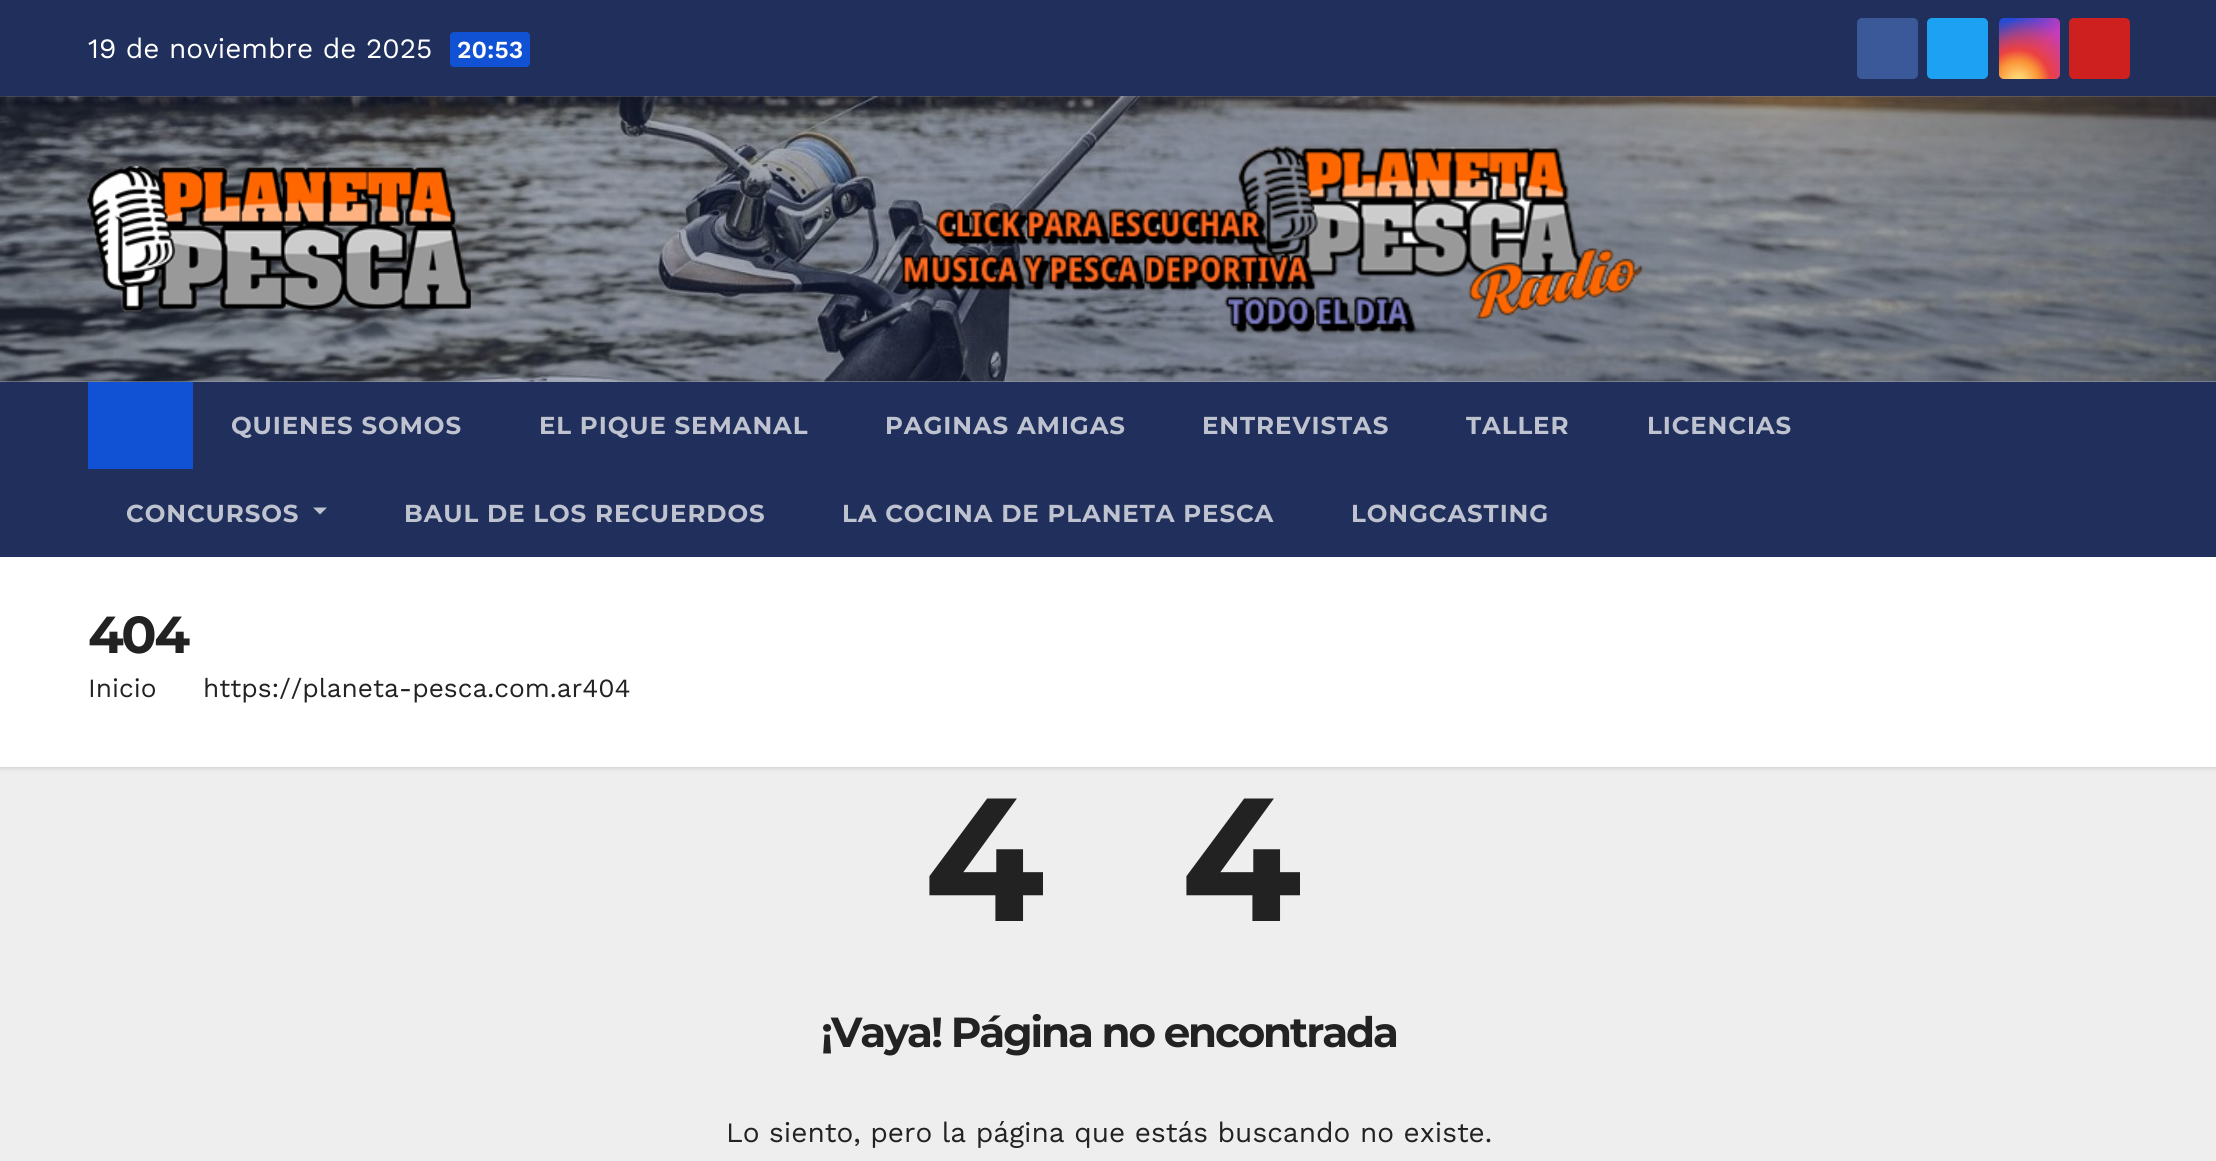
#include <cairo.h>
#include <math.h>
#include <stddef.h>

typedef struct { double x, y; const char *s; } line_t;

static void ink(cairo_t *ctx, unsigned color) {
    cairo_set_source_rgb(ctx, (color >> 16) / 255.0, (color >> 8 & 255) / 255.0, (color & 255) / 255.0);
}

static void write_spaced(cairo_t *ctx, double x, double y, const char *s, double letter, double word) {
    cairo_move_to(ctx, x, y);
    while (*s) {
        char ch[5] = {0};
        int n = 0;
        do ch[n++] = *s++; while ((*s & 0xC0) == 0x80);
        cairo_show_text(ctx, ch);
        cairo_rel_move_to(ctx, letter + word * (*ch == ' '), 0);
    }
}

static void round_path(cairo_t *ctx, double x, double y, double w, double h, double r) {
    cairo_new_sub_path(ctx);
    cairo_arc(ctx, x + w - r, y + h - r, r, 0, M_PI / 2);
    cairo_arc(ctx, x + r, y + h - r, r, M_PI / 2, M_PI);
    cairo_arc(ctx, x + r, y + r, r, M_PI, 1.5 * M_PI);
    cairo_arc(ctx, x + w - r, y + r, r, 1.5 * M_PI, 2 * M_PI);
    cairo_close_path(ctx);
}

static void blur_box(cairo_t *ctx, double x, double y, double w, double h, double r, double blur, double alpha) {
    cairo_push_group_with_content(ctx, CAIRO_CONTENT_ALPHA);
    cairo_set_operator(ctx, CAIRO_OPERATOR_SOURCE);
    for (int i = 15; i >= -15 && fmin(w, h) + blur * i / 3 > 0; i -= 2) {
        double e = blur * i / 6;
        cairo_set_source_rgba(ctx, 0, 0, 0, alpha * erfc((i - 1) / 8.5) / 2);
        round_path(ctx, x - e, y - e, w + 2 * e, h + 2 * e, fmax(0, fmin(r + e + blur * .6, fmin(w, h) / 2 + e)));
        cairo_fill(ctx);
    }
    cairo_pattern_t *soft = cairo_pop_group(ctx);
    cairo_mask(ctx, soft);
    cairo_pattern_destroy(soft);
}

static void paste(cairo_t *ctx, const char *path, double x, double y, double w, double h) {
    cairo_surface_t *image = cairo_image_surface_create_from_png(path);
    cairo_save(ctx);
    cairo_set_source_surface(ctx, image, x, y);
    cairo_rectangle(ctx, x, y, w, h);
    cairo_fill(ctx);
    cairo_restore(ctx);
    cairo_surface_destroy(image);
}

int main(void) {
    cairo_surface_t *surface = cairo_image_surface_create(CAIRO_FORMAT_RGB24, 2216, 1161);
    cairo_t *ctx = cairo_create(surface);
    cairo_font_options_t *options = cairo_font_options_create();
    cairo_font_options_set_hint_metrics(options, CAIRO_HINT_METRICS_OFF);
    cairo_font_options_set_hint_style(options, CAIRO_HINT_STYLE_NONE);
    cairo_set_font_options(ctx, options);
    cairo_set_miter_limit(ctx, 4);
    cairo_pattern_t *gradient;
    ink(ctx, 0xEEEEEE);
    cairo_paint(ctx);
    ink(ctx, 0x9CA2B3);
    cairo_rectangle(ctx, 0, 96, 2216, 286);
    cairo_fill(ctx);
    ink(ctx, 0x202F5B);
    cairo_rectangle(ctx, 0, 0, 2216, 96);
    cairo_fill(ctx);
    cairo_select_font_face(ctx, "Work Sans", CAIRO_FONT_SLANT_NORMAL, CAIRO_FONT_WEIGHT_NORMAL);
    cairo_set_font_size(ctx, 28);
    ink(ctx, 0xFFFFFF);
    cairo_move_to(ctx, 88, 58);
    cairo_show_text(ctx, "19 de noviembre de 2025");
    ink(ctx, 0x1151D3);
    round_path(ctx, 450, 32, 80, 35, 4);
    cairo_fill(ctx);
    cairo_select_font_face(ctx, "Work Sans SemiBold", CAIRO_FONT_SLANT_NORMAL, CAIRO_FONT_WEIGHT_NORMAL);
    cairo_set_font_size(ctx, 24.5);
    ink(ctx, 0xFFFFFF);
    cairo_move_to(ctx, 457, 58);
    cairo_show_text(ctx, "20:53");
    ink(ctx, 0x3B5998);
    round_path(ctx, 1857, 18, 61, 61, 5);
    cairo_fill(ctx);
    ink(ctx, 0x1DA1F2);
    round_path(ctx, 1927, 18, 61, 61, 5);
    cairo_fill(ctx);
    gradient = cairo_pattern_create_linear(1999, 18, 2060, 79);
    cairo_pattern_add_color_stop_rgba(gradient, 0.12, 0.137, 0.294, 0.843, 1);
    cairo_pattern_add_color_stop_rgba(gradient, 0.58, 0.765, 0.235, 0.745, 1);
    cairo_set_source(ctx, gradient);
    cairo_pattern_destroy(gradient);
    round_path(ctx, 1999, 18, 61, 61, 5);
    cairo_fill(ctx);
    gradient = cairo_pattern_create_radial(2018, 82, 0, 2018, 82, 77);
    cairo_pattern_add_color_stop_rgba(gradient, 0, 1, 0.882, 0.49, 1);
    cairo_pattern_add_color_stop_rgba(gradient, 0.1, 1, 0.804, 0.412, 1);
    cairo_pattern_add_color_stop_rgba(gradient, 0.28, 0.98, 0.569, 0.216, 1);
    cairo_pattern_add_color_stop_rgba(gradient, 0.42, 0.922, 0.255, 0.255, 1);
    cairo_pattern_add_color_stop_rgba(gradient, 0.82, 0.922, 0.255, 0.255, 0);
    cairo_set_source(ctx, gradient);
    cairo_pattern_destroy(gradient);
    round_path(ctx, 1999, 18, 61, 61, 5);
    cairo_fill(ctx);
    ink(ctx, 0xCD201F);
    round_path(ctx, 2069, 18, 61, 61, 5);
    cairo_fill(ctx);
    paste(ctx, "media/1.png", 0, 96, 2216, 286);
    paste(ctx, "media/2.png", 87, 166, 384, 146);
    paste(ctx, "media/3.png", 901, 145, 743, 190);
    ink(ctx, 0x000000);
    blur_box(ctx, 0, 558, 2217, 210, 0, 2.5, 0.15);
    ink(ctx, 0x202F5B);
    cairo_rectangle(ctx, 0, 382, 2216, 175);
    cairo_fill(ctx);
    ink(ctx, 0x1151D3);
    cairo_rectangle(ctx, 88, 382, 105, 87);
    cairo_fill(ctx);
    cairo_select_font_face(ctx, "Montserrat", CAIRO_FONT_SLANT_NORMAL, CAIRO_FONT_WEIGHT_BOLD);
    ink(ctx, 0xBEC3CF);
    {
        static const line_t items[] = {
            {231, 434, "QUIENES SOMOS"},
            {539, 434, "EL PIQUE SEMANAL"},
            {885, 434, "PAGINAS AMIGAS"},
            {1202, 434, "ENTREVISTAS"},
            {1466, 434, "TALLER"},
            {1647, 434, "LICENCIAS"},
            {126, 522, "CONCURSOS"},
        };
        for (size_t i = 0; i < sizeof items / sizeof *items; i++) {
            write_spaced(ctx, items[i].x, items[i].y, items[i].s, 0.9, 0);
        }
    }
    cairo_new_path(ctx);
    cairo_move_to(ctx, 313, 507.5);
    cairo_line_to(ctx, 327, 507.5);
    cairo_line_to(ctx, 320, 514.5);
    cairo_close_path(ctx);
    cairo_fill(ctx);
    {
        static const line_t items[] = {
            {404, 522, "BAUL DE LOS RECUERDOS"},
            {842, 522, "LA COCINA DE PLANETA PESCA"},
            {1351, 522, "LONGCASTING"},
        };
        for (size_t i = 0; i < sizeof items / sizeof *items; i++) {
            write_spaced(ctx, items[i].x, items[i].y, items[i].s, 0.9, 0);
        }
    }
    ink(ctx, 0xFFFFFF);
    cairo_rectangle(ctx, 0, 557, 2216, 210);
    cairo_fill(ctx);
    cairo_set_font_size(ctx, 52);
    ink(ctx, 0x222222);
    write_spaced(ctx, 88, 653, "404", -2.5, 0);
    cairo_select_font_face(ctx, "Work Sans", CAIRO_FONT_SLANT_NORMAL, CAIRO_FONT_WEIGHT_NORMAL);
    cairo_set_font_size(ctx, 26.25);
    cairo_move_to(ctx, 88, 697);
    cairo_show_text(ctx, "Inicio");
    cairo_move_to(ctx, 203, 697);
    cairo_show_text(ctx, "https://planeta-pesca.com.ar404");
    cairo_select_font_face(ctx, "Montserrat", CAIRO_FONT_SLANT_NORMAL, CAIRO_FONT_WEIGHT_BOLD);
    cairo_set_font_size(ctx, 175);
    write_spaced(ctx, 924, 921, "4", -9, 0);
    write_spaced(ctx, 1181, 921, "4", -9, 0);
    cairo_set_font_size(ctx, 42);
    write_spaced(ctx, 821, 1047, "¡Vaya! Página no encontrada", -2.1, 0);
    cairo_select_font_face(ctx, "Work Sans", CAIRO_FONT_SLANT_NORMAL, CAIRO_FONT_WEIGHT_NORMAL);
    cairo_set_font_size(ctx, 28);
    cairo_move_to(ctx, 726, 1142);
    cairo_show_text(ctx, "Lo siento, pero la página que estás buscando no existe.");
    cairo_surface_write_to_png(surface, "image.png");
    cairo_font_options_destroy(options);
    cairo_destroy(ctx);
    cairo_surface_destroy(surface);
    return 0;
}
